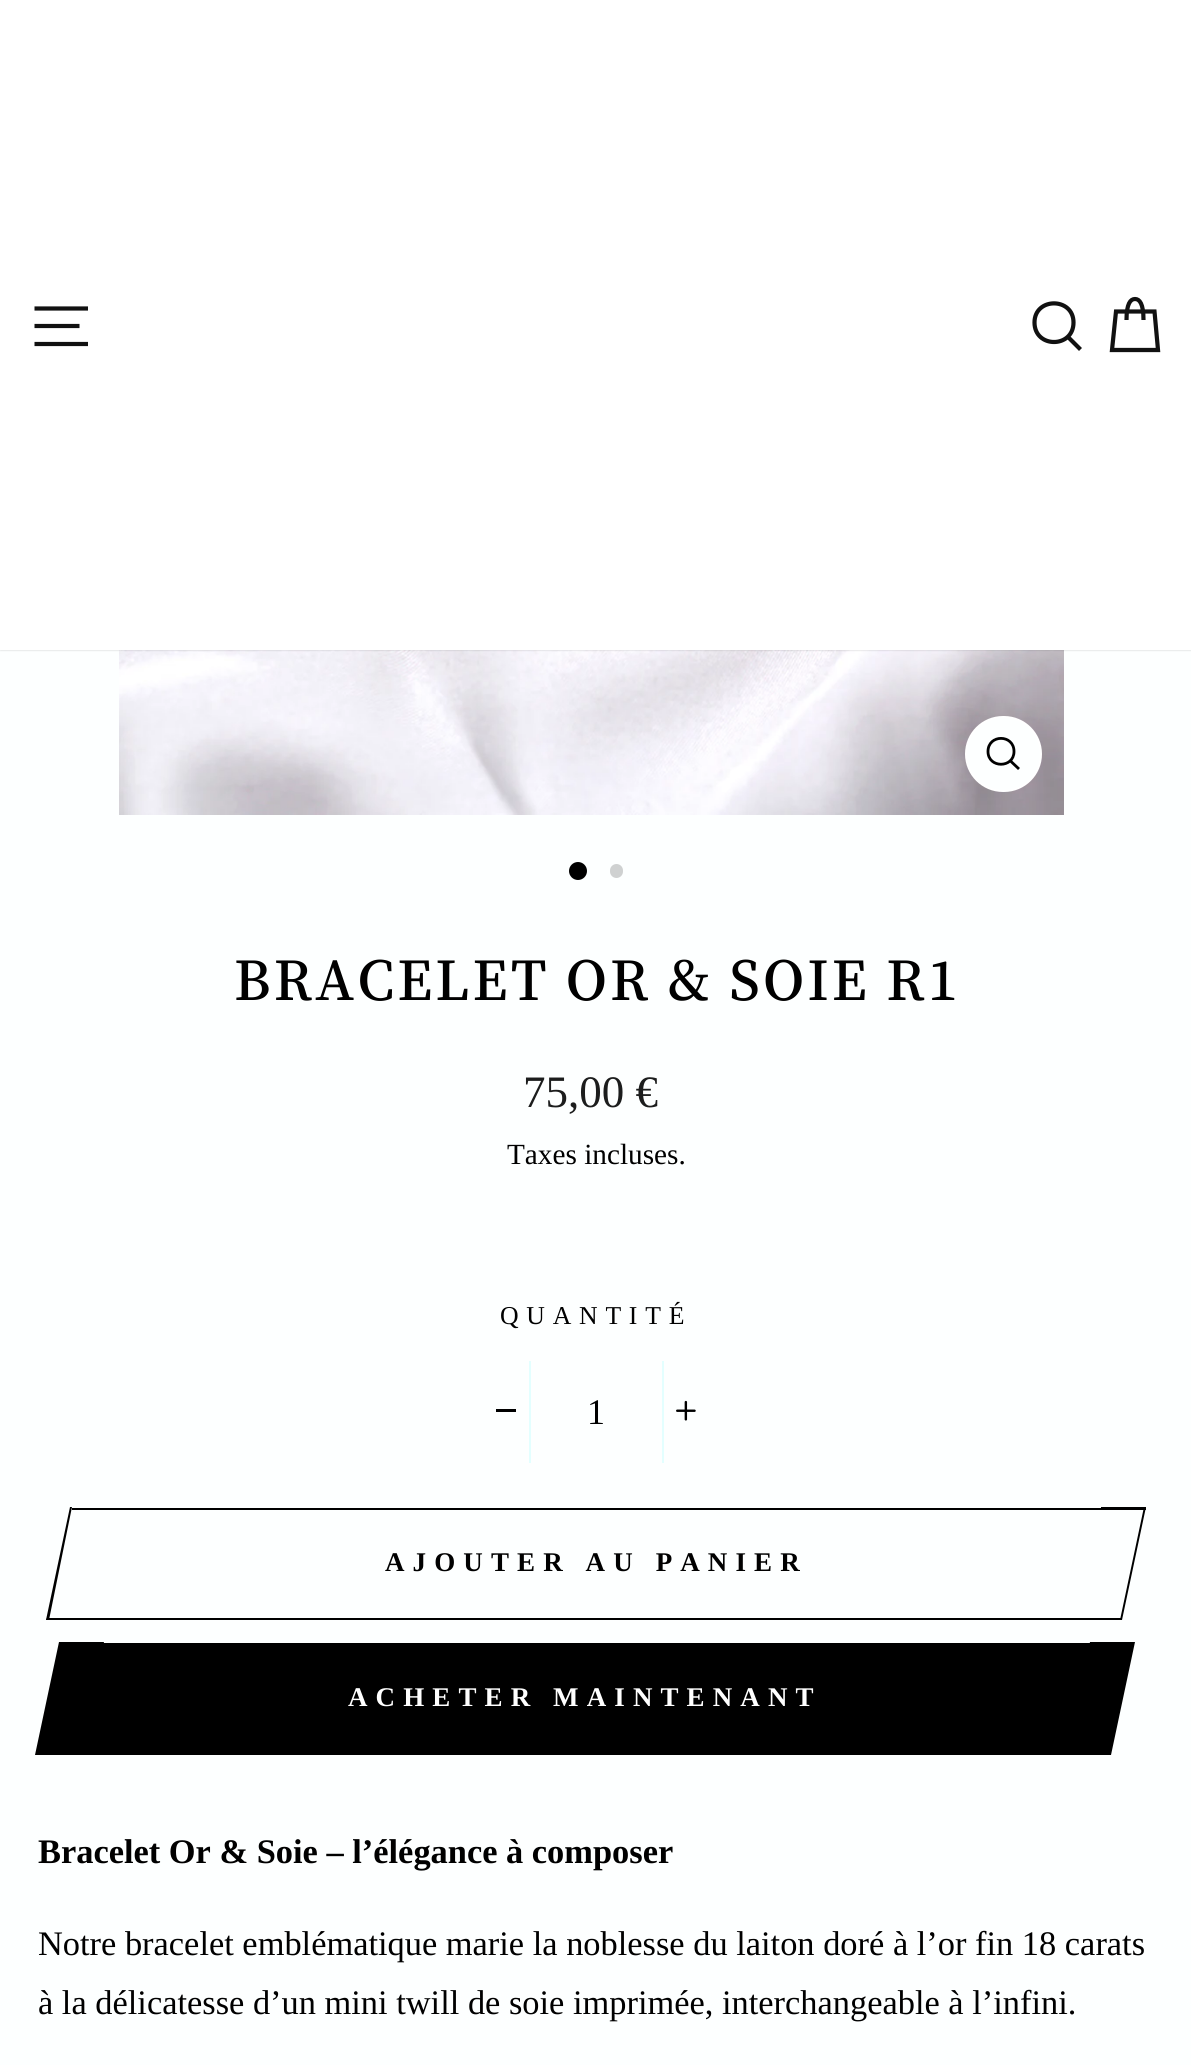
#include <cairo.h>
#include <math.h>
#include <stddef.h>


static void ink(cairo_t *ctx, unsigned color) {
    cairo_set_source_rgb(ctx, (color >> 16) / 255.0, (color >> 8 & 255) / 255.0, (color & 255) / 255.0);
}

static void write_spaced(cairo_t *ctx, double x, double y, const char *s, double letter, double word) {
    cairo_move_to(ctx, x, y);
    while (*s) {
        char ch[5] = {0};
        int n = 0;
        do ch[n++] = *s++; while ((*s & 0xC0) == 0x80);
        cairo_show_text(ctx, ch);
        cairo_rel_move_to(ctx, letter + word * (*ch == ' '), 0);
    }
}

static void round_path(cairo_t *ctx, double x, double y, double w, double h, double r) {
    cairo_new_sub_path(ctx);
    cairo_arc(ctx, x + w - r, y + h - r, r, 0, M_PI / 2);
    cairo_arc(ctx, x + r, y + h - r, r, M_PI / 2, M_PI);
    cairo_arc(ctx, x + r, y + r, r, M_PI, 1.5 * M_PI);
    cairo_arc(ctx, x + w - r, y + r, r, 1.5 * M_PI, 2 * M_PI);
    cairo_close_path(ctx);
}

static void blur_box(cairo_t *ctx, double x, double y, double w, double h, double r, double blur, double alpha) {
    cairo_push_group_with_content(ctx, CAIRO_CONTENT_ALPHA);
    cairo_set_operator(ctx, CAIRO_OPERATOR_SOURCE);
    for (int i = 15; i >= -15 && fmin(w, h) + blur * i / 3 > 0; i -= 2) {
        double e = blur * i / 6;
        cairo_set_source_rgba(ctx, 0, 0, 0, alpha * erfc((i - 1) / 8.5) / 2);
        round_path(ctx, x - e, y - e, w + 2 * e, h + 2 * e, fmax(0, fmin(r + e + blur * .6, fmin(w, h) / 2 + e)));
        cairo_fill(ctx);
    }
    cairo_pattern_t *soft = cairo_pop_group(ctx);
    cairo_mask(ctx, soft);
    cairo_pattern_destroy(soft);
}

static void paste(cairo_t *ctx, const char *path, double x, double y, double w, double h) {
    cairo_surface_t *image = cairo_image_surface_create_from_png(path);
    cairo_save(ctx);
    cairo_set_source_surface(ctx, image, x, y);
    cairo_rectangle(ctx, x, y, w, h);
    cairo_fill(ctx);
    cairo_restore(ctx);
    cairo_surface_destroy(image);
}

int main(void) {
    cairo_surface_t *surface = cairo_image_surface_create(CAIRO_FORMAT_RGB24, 1191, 2065);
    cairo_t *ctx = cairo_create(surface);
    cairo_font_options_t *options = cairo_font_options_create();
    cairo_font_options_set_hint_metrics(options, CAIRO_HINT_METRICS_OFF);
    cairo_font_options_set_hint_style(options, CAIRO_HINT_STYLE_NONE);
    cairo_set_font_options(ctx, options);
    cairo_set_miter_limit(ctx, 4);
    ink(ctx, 0xFDFFFF);
    cairo_paint(ctx);
    paste(ctx, "media/1.png", 119, 650, 945, 165);
    ink(ctx, 0x000000);
    blur_box(ctx, 0, 0, 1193, 650, 0, 1, 0.2);
    ink(ctx, 0xFFFFFF);
    cairo_rectangle(ctx, 0, 0, 1191, 650);
    cairo_fill(ctx);
    cairo_new_path(ctx);
    cairo_move_to(ctx, 34.5, 308.5);
    cairo_line_to(ctx, 88, 308.5);
    cairo_move_to(ctx, 34.5, 326);
    cairo_line_to(ctx, 79.5, 326);
    cairo_move_to(ctx, 34.5, 344);
    cairo_line_to(ctx, 88, 344);
    ink(ctx, 0x111111);
    cairo_set_line_width(ctx, 4.2);
    cairo_stroke(ctx);
    cairo_new_path(ctx);
    cairo_move_to(ctx, 1073.5, 322.5);
    cairo_curve_to(ctx, 1073.5, 348.5, 1034.5, 348.5, 1034.5, 322.5);
    cairo_curve_to(ctx, 1034.5, 297, 1073.5, 297, 1073.5, 322.5);
    cairo_close_path(ctx);
    cairo_move_to(ctx, 1080.5, 349.5);
    cairo_line_to(ctx, 1068, 337);
    cairo_stroke(ctx);
    cairo_new_path(ctx);
    cairo_move_to(ctx, 1126.5, 320);
    cairo_curve_to(ctx, 1126.5, 303.5, 1130.5, 299, 1135, 299);
    cairo_curve_to(ctx, 1139.5, 299, 1143.5, 303.5, 1143.5, 320);
    cairo_move_to(ctx, 1116, 311.5);
    cairo_line_to(ctx, 1154.5, 311.5);
    cairo_line_to(ctx, 1158, 350);
    cairo_line_to(ctx, 1112, 350);
    cairo_close_path(ctx);
    cairo_stroke(ctx);
    ink(ctx, 0xFDFFFF);
    round_path(ctx, 966, 717, 75, 74, 37);
    cairo_fill_preserve(ctx);
    ink(ctx, 0xFFFFFF);
    cairo_set_line_width(ctx, 2);
    cairo_stroke(ctx);
    cairo_new_path(ctx);
    cairo_move_to(ctx, 1014, 751.5);
    cairo_curve_to(ctx, 1014, 768.5, 988, 768.5, 988, 751.5);
    cairo_curve_to(ctx, 988, 734, 1014, 734, 1014, 751.5);
    cairo_close_path(ctx);
    cairo_move_to(ctx, 1019, 769);
    cairo_line_to(ctx, 1010.5, 761);
    ink(ctx, 0x000000);
    cairo_set_line_width(ctx, 2.8);
    cairo_stroke(ctx);
    cairo_arc(ctx, 578, 871, 9, 0, 2 * M_PI);
    cairo_fill(ctx);
    ink(ctx, 0xCFD1D1);
    round_path(ctx, 610, 864, 13, 14, 6.5);
    cairo_fill(ctx);
    cairo_select_font_face(ctx, "Source Serif 4 Medium", CAIRO_FONT_SLANT_NORMAL, CAIRO_FONT_WEIGHT_NORMAL);
    cairo_set_font_size(ctx, 59.25);
    ink(ctx, 0x000000);
    write_spaced(ctx, 234, 1000, "BRACELET OR & SOIE R1", 3, 0);
    cairo_select_font_face(ctx, "Liberation Serif", CAIRO_FONT_SLANT_NORMAL, CAIRO_FONT_WEIGHT_NORMAL);
    cairo_set_font_size(ctx, 45);
    ink(ctx, 0x1C1D1D);
    cairo_move_to(ctx, 523, 1107);
    cairo_show_text(ctx, "75,00 €");
    cairo_set_font_size(ctx, 29.25);
    ink(ctx, 0x000000);
    cairo_move_to(ctx, 507, 1164);
    cairo_show_text(ctx, "Taxes incluses.");
    cairo_set_font_size(ctx, 25.75);
    write_spaced(ctx, 500, 1324, "QUANTITÉ", 7.75, 0);
    ink(ctx, 0xE3FFFF);
    cairo_rectangle(ctx, 529, 1361, 2, 102);
    cairo_fill(ctx);
    ink(ctx, 0x000000);
    cairo_rectangle(ctx, 496, 1409, 20, 3);
    cairo_fill(ctx);
    cairo_set_font_size(ctx, 36);
    cairo_move_to(ctx, 587, 1424);
    cairo_show_text(ctx, "1");
    ink(ctx, 0xE3FFFF);
    cairo_rectangle(ctx, 662, 1361, 2, 102);
    cairo_fill(ctx);
    paste(ctx, "media/2.png", 676, 1400, 20, 21);
    ink(ctx, 0x000000);
    cairo_rectangle(ctx, 72, 1508, 1029, 2);
    cairo_fill(ctx);
    cairo_rectangle(ctx, 91, 1618, 1030, 2);
    cairo_fill(ctx);
    cairo_new_path(ctx);
    cairo_move_to(ctx, 47, 1618);
    cairo_line_to(ctx, 92, 1618);
    cairo_line_to(ctx, 91, 1620);
    cairo_line_to(ctx, 46, 1620);
    cairo_close_path(ctx);
    cairo_fill(ctx);
    cairo_new_path(ctx);
    cairo_move_to(ctx, 70, 1507);
    cairo_line_to(ctx, 72, 1507);
    cairo_line_to(ctx, 49, 1620);
    cairo_line_to(ctx, 46, 1620);
    cairo_close_path(ctx);
    cairo_fill(ctx);
    cairo_select_font_face(ctx, "Liberation Serif", CAIRO_FONT_SLANT_NORMAL, CAIRO_FONT_WEIGHT_BOLD);
    cairo_set_font_size(ctx, 27);
    write_spaced(ctx, 385, 1571, "AJOUTER AU PANIER", 8.1, 0);
    cairo_rectangle(ctx, 1101, 1507, 45, 3);
    cairo_fill(ctx);
    cairo_new_path(ctx);
    cairo_move_to(ctx, 1144, 1507);
    cairo_line_to(ctx, 1146, 1507);
    cairo_line_to(ctx, 1122, 1620);
    cairo_line_to(ctx, 1120, 1620);
    cairo_close_path(ctx);
    cairo_fill(ctx);
    cairo_rectangle(ctx, 80, 1643, 1010, 112);
    cairo_fill(ctx);
    cairo_new_path(ctx);
    cairo_move_to(ctx, 59, 1642);
    cairo_line_to(ctx, 104, 1642);
    cairo_line_to(ctx, 80, 1755);
    cairo_line_to(ctx, 35, 1755);
    cairo_close_path(ctx);
    cairo_fill(ctx);
    ink(ctx, 0xFFFFFF);
    write_spaced(ctx, 348, 1706, "ACHETER MAINTENANT", 8.1, 0);
    ink(ctx, 0x000000);
    cairo_new_path(ctx);
    cairo_move_to(ctx, 1090, 1642);
    cairo_line_to(ctx, 1135, 1642);
    cairo_line_to(ctx, 1111, 1755);
    cairo_line_to(ctx, 1066, 1755);
    cairo_close_path(ctx);
    cairo_fill(ctx);
    cairo_set_font_size(ctx, 34.4);
    cairo_move_to(ctx, 38, 1863);
    cairo_show_text(ctx, "Bracelet Or & Soie – l’élégance à composer");
    cairo_select_font_face(ctx, "Liberation Serif", CAIRO_FONT_SLANT_NORMAL, CAIRO_FONT_WEIGHT_NORMAL);
    cairo_move_to(ctx, 38, 1955);
    cairo_show_text(ctx, "Notre bracelet emblématique marie la noblesse du laiton doré à l’or fin 18 carats");
    cairo_move_to(ctx, 38, 2014);
    cairo_show_text(ctx, "à la délicatesse d’un mini twill de soie imprimée, interchangeable à l’infini.");
    cairo_surface_write_to_png(surface, "image.png");
    cairo_font_options_destroy(options);
    cairo_destroy(ctx);
    cairo_surface_destroy(surface);
    return 0;
}
